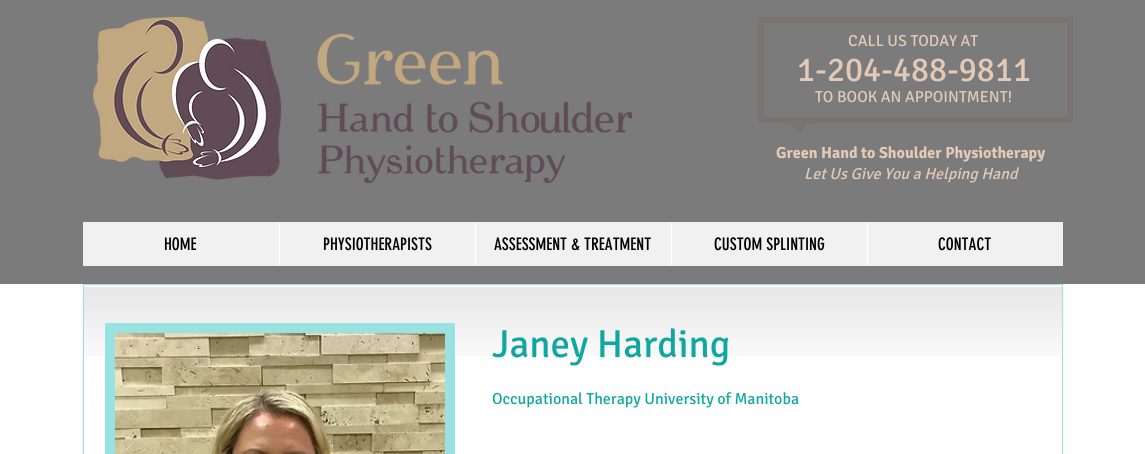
#include <cairo.h>
#include <math.h>
#include <stddef.h>


static void ink(cairo_t *ctx, unsigned color) {
    cairo_set_source_rgb(ctx, (color >> 16) / 255.0, (color >> 8 & 255) / 255.0, (color & 255) / 255.0);
}

static void paste(cairo_t *ctx, const char *path, double x, double y, double w, double h) {
    cairo_surface_t *image = cairo_image_surface_create_from_png(path);
    cairo_save(ctx);
    cairo_set_source_surface(ctx, image, x, y);
    cairo_rectangle(ctx, x, y, w, h);
    cairo_fill(ctx);
    cairo_restore(ctx);
    cairo_surface_destroy(image);
}

int main(void) {
    cairo_surface_t *surface = cairo_image_surface_create(CAIRO_FORMAT_RGB24, 1145, 454);
    cairo_t *ctx = cairo_create(surface);
    cairo_font_options_t *options = cairo_font_options_create();
    cairo_font_options_set_hint_metrics(options, CAIRO_HINT_METRICS_OFF);
    cairo_font_options_set_hint_style(options, CAIRO_HINT_STYLE_NONE);
    cairo_set_font_options(ctx, options);
    cairo_set_miter_limit(ctx, 4);
    ink(ctx, 0xFFFFFF);
    cairo_paint(ctx);
    ink(ctx, 0x7B7B7B);
    cairo_rectangle(ctx, 0, 0, 1145, 284);
    cairo_fill(ctx);
    paste(ctx, "media/1.png", 93, 17, 539, 166);
    cairo_rectangle(ctx, 761, 20, 309, 100);
    ink(ctx, 0x7B736F);
    cairo_set_line_width(ctx, 6);
    cairo_stroke(ctx);
    cairo_select_font_face(ctx, "Signika", CAIRO_FONT_SLANT_NORMAL, CAIRO_FONT_WEIGHT_NORMAL);
    cairo_set_font_size(ctx, 16);
    ink(ctx, 0xE2CAB7);
    cairo_move_to(ctx, 848, 46);
    cairo_show_text(ctx, "CALL US TODAY AT");
    cairo_set_font_size(ctx, 34);
    cairo_move_to(ctx, 797, 81);
    cairo_show_text(ctx, "1-204-488-9811");
    cairo_set_font_size(ctx, 16);
    cairo_move_to(ctx, 815, 102);
    cairo_show_text(ctx, "TO BOOK AN APPOINTMENT!");
    ink(ctx, 0x7B736F);
    cairo_new_path(ctx);
    cairo_move_to(ctx, 789, 123);
    cairo_line_to(ctx, 809, 123);
    cairo_line_to(ctx, 799, 133);
    cairo_close_path(ctx);
    cairo_fill(ctx);
    cairo_select_font_face(ctx, "Signika", CAIRO_FONT_SLANT_NORMAL, CAIRO_FONT_WEIGHT_BOLD);
    ink(ctx, 0xE2CAB7);
    cairo_move_to(ctx, 776, 158);
    cairo_show_text(ctx, "Green Hand to Shoulder Physiotherapy");
    cairo_select_font_face(ctx, "Signika", CAIRO_FONT_SLANT_ITALIC, CAIRO_FONT_WEIGHT_NORMAL);
    cairo_move_to(ctx, 804, 179);
    cairo_show_text(ctx, "Let Us Give You a Helping Hand");
    ink(ctx, 0xF1F1F1);
    cairo_rectangle(ctx, 83, 222, 980, 44);
    cairo_fill(ctx);
    cairo_select_font_face(ctx, "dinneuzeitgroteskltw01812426", CAIRO_FONT_SLANT_NORMAL, CAIRO_FONT_WEIGHT_NORMAL);
    cairo_set_font_size(ctx, 17);
    ink(ctx, 0x000000);
    cairo_move_to(ctx, 164, 250);
    cairo_show_text(ctx, "HOME");
    ink(ctx, 0xFFFFFF);
    cairo_rectangle(ctx, 279, 222, 1, 44);
    cairo_fill(ctx);
    ink(ctx, 0x000000);
    cairo_move_to(ctx, 323, 250);
    cairo_show_text(ctx, "PHYSIOTHERAPISTS");
    ink(ctx, 0xFFFFFF);
    cairo_rectangle(ctx, 475, 222, 1, 44);
    cairo_fill(ctx);
    ink(ctx, 0x000000);
    cairo_move_to(ctx, 494, 250);
    cairo_show_text(ctx, "ASSESSMENT & TREATMENT");
    ink(ctx, 0xFFFFFF);
    cairo_rectangle(ctx, 671, 222, 1, 44);
    cairo_fill(ctx);
    ink(ctx, 0x000000);
    cairo_move_to(ctx, 714, 250);
    cairo_show_text(ctx, "CUSTOM SPLINTING");
    ink(ctx, 0xFFFFFF);
    cairo_rectangle(ctx, 867, 222, 1, 44);
    cairo_fill(ctx);
    ink(ctx, 0x000000);
    cairo_move_to(ctx, 938, 250);
    cairo_show_text(ctx, "CONTACT");
    paste(ctx, "media/2.png", 84, 287, 978, 69);
    cairo_rectangle(ctx, 83.5, 284.5, 979, 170);
    ink(ctx, 0x99E2E2);
    cairo_set_line_width(ctx, 1);
    cairo_stroke(ctx);
    cairo_rectangle(ctx, 105, 323, 350, 131);
    cairo_fill(ctx);
    paste(ctx, "media/3.png", 115, 333, 330, 121);
    cairo_select_font_face(ctx, "Signika", CAIRO_FONT_SLANT_NORMAL, CAIRO_FONT_WEIGHT_NORMAL);
    cairo_set_font_size(ctx, 39);
    ink(ctx, 0x0FA8A1);
    cairo_move_to(ctx, 492, 357);
    cairo_show_text(ctx, "Janey Harding");
    cairo_set_font_size(ctx, 16);
    cairo_move_to(ctx, 492, 404);
    cairo_show_text(ctx, "Occupational Therapy University of Manitoba");
    cairo_surface_write_to_png(surface, "image.png");
    cairo_font_options_destroy(options);
    cairo_destroy(ctx);
    cairo_surface_destroy(surface);
    return 0;
}
